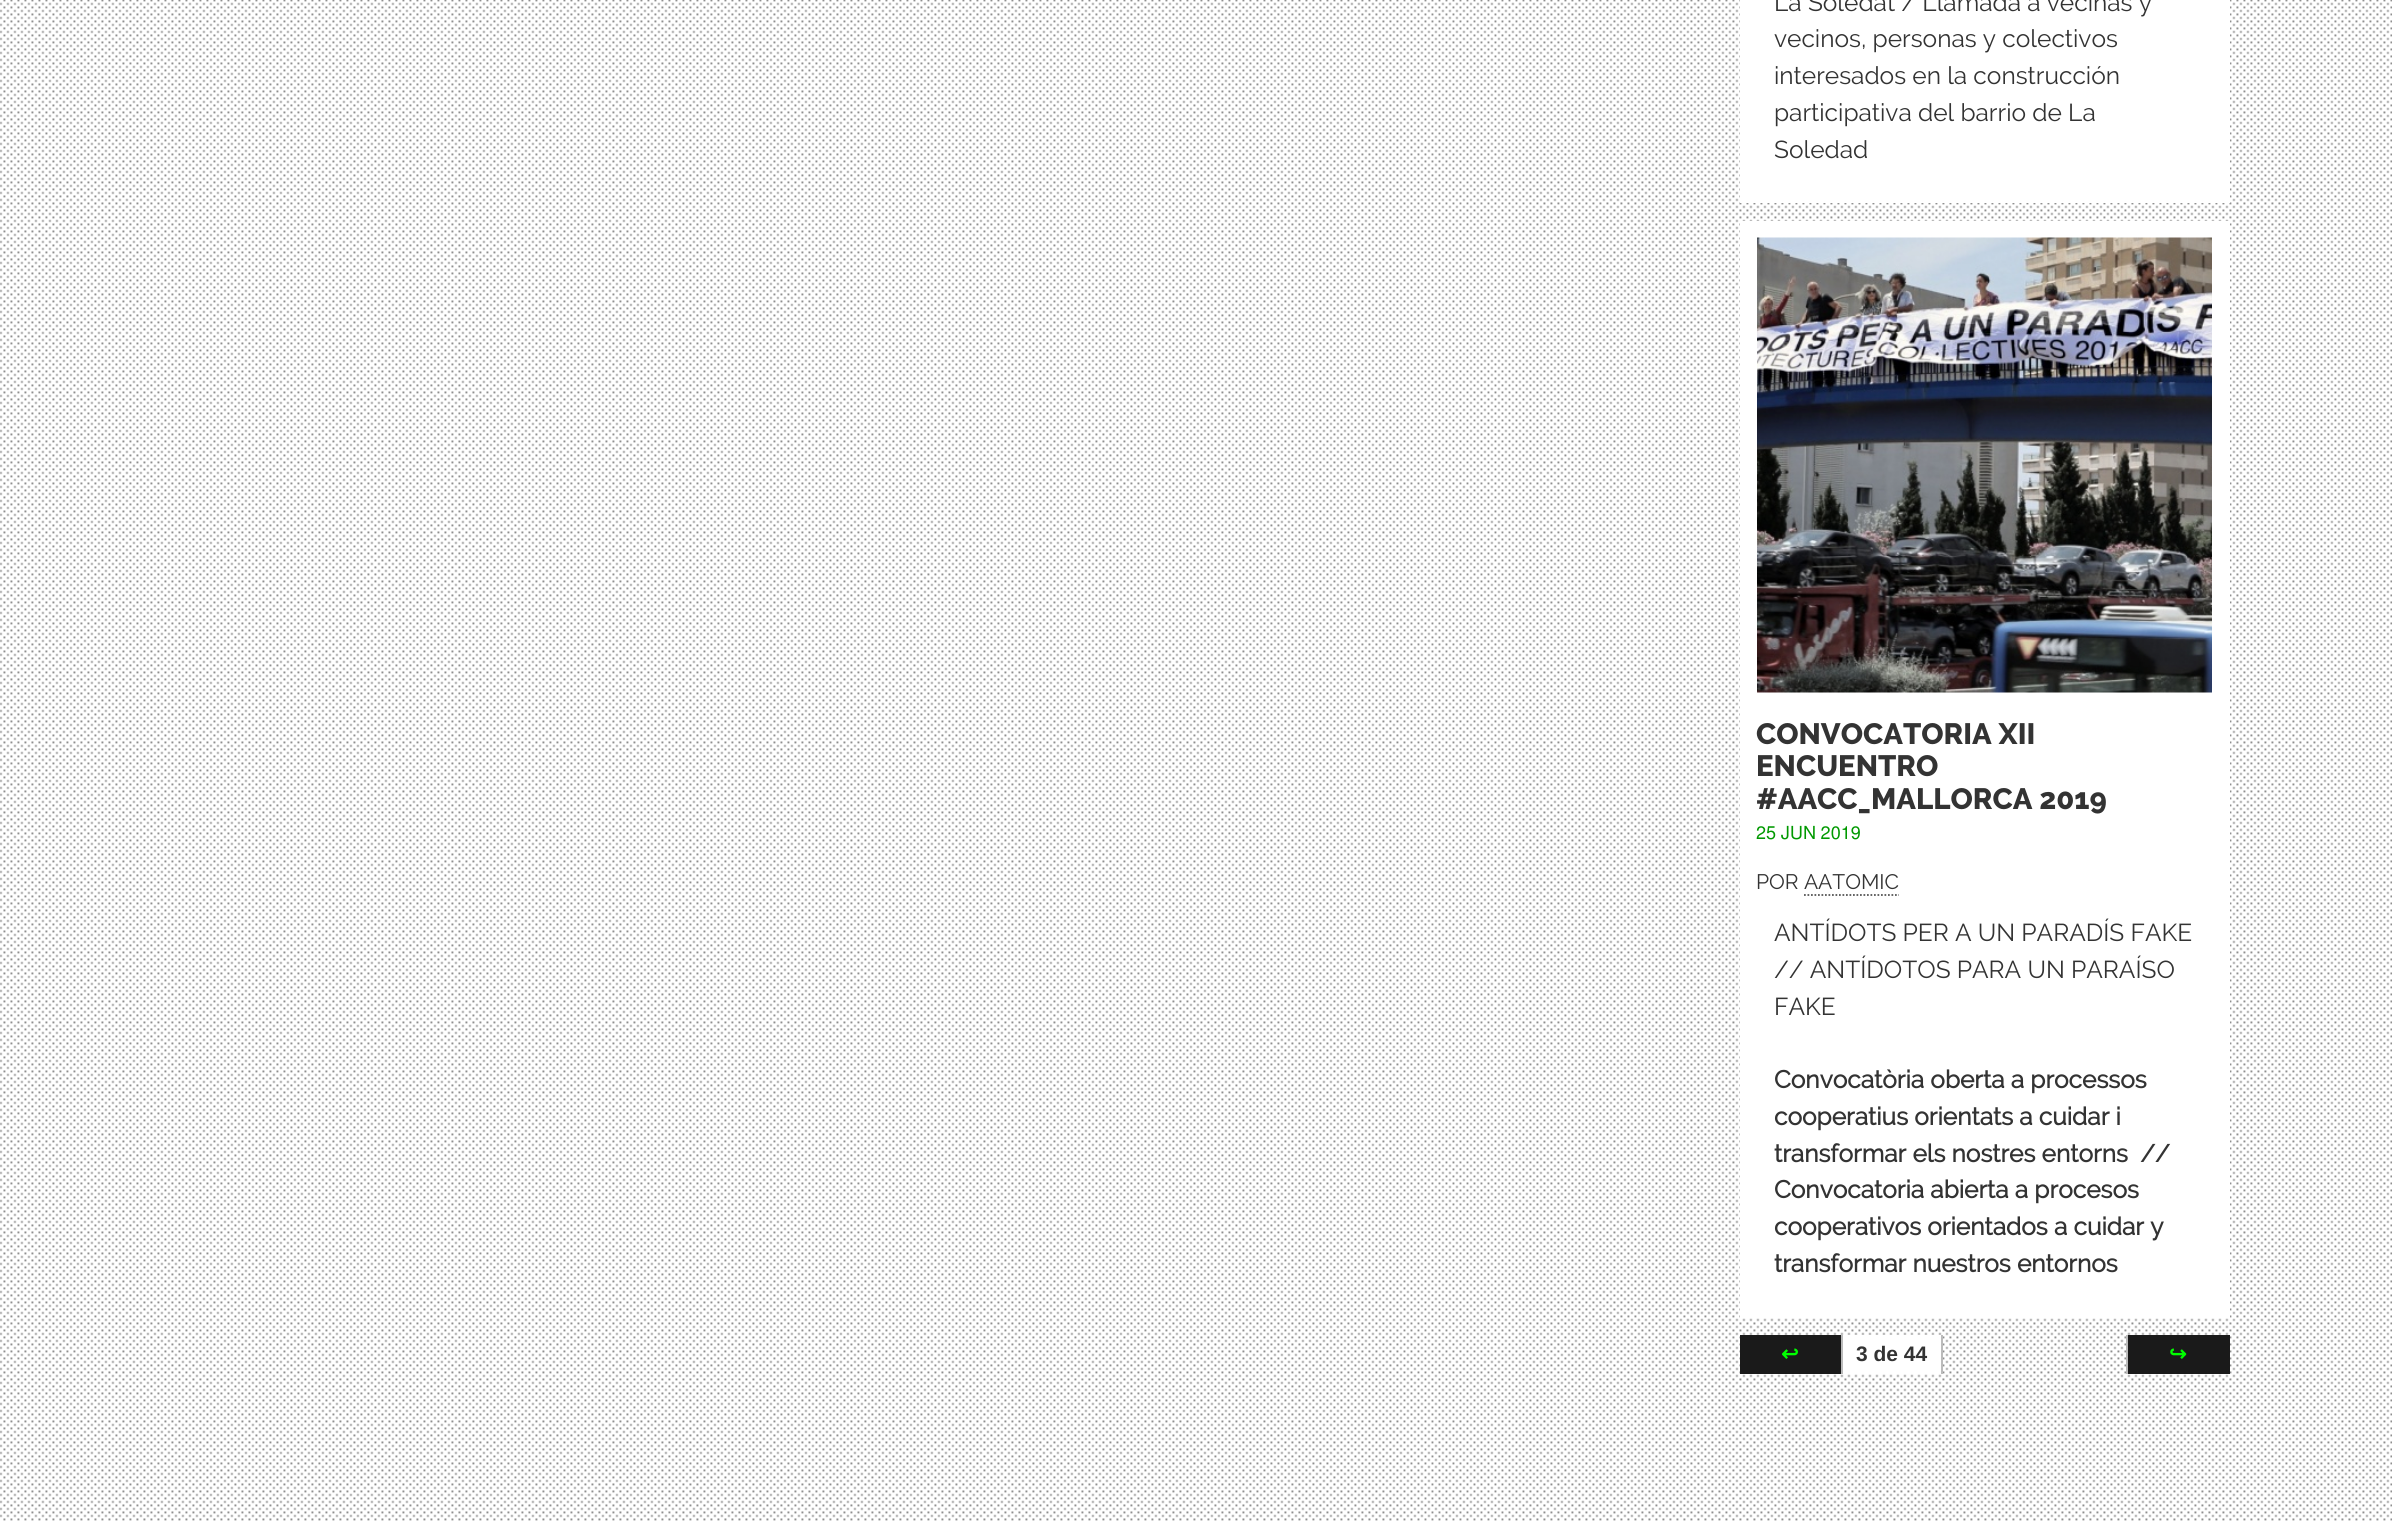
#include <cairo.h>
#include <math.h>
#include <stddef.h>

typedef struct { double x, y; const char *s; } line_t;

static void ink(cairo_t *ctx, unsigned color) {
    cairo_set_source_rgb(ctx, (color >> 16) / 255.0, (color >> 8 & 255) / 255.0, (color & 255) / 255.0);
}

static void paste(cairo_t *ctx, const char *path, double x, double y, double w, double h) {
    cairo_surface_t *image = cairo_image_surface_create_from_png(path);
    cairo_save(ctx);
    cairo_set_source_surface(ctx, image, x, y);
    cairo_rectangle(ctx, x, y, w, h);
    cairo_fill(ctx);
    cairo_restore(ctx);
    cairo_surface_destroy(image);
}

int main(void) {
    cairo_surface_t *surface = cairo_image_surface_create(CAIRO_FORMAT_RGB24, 2392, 1521);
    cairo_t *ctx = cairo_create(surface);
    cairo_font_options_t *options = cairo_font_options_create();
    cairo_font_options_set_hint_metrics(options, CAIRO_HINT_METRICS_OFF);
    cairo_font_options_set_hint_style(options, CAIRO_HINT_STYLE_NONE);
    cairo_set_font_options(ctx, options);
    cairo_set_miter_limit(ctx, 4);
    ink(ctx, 0xFFFFFF);
    cairo_paint(ctx);
    paste(ctx, "media/1.png", 0, 0, 2392, 1521);
    ink(ctx, 0xFFFFFF);
    cairo_rectangle(ctx, 1740, 0, 490, 203);
    cairo_fill(ctx);
    cairo_select_font_face(ctx, "Raleway", CAIRO_FONT_SLANT_NORMAL, CAIRO_FONT_WEIGHT_NORMAL);
    cairo_set_font_size(ctx, 24.5);
    ink(ctx, 0x333333);
    {
        static const line_t items[] = {
            {1774, 11, "La Soledat / Llamada a vecinas y"},
            {1774, 47, "vecinos, personas y colectivos"},
            {1774, 84, "interesados en la construcción"},
            {1774, 121, "participativa del barrio de La"},
            {1774, 158, "Soledad"},
        };
        for (size_t i = 0; i < sizeof items / sizeof *items; i++) {
            cairo_move_to(ctx, items[i].x, items[i].y);
            cairo_show_text(ctx, items[i].s);
        }
    }
    ink(ctx, 0xFFFFFF);
    cairo_rectangle(ctx, 1740, 221, 490, 1097);
    cairo_fill(ctx);
    paste(ctx, "media/2.png", 1757, 237, 455, 456);
    cairo_select_font_face(ctx, "Raleway ExtraBold", CAIRO_FONT_SLANT_NORMAL, CAIRO_FONT_WEIGHT_NORMAL);
    cairo_set_font_size(ctx, 29.4);
    ink(ctx, 0x333333);
    {
        static const line_t items[] = {
            {1756, 744, "CONVOCATORIA XII"},
            {1756, 776, "ENCUENTRO"},
            {1756, 809, "#AACC_MALLORCA 2019"},
        };
        for (size_t i = 0; i < sizeof items / sizeof *items; i++) {
            cairo_move_to(ctx, items[i].x, items[i].y);
            cairo_show_text(ctx, items[i].s);
        }
    }
    cairo_select_font_face(ctx, "FreeSans", CAIRO_FONT_SLANT_NORMAL, CAIRO_FONT_WEIGHT_NORMAL);
    cairo_set_font_size(ctx, 18);
    ink(ctx, 0x009900);
    cairo_move_to(ctx, 1756, 839);
    cairo_show_text(ctx, "25 JUN 2019");
    cairo_select_font_face(ctx, "Raleway", CAIRO_FONT_SLANT_NORMAL, CAIRO_FONT_WEIGHT_NORMAL);
    cairo_set_font_size(ctx, 21);
    ink(ctx, 0x333333);
    cairo_move_to(ctx, 1756, 889);
    cairo_show_text(ctx, "POR AATOMIC");
    cairo_new_path(ctx);
    cairo_move_to(ctx, 1804, 895);
    cairo_line_to(ctx, 1899, 895);
    ink(ctx, 0x555555);
    cairo_set_line_width(ctx, 1.8);
    cairo_set_dash(ctx, (double[]){1.75, 1.75}, 2, 0);
    cairo_stroke(ctx);
    cairo_set_font_size(ctx, 24.5);
    ink(ctx, 0x333333);
    {
        static const line_t items[] = {
            {1774, 941, "ANTÍDOTS PER A UN PARADÍS FAKE"},
            {1774, 978, "// ANTÍDOTOS PARA UN PARAÍSO"},
            {1774, 1015, "FAKE"},
        };
        for (size_t i = 0; i < sizeof items / sizeof *items; i++) {
            cairo_move_to(ctx, items[i].x, items[i].y);
            cairo_show_text(ctx, items[i].s);
        }
    }
    cairo_select_font_face(ctx, "Raleway", CAIRO_FONT_SLANT_NORMAL, CAIRO_FONT_WEIGHT_BOLD);
    {
        static const line_t items[] = {
            {1774, 1088, "Convocatòria oberta a processos"},
            {1774, 1125, "cooperatius orientats a cuidar i"},
            {1774, 1162, "transformar els nostres entorns  //"},
            {1774, 1198, "Convocatoria abierta a procesos"},
            {1774, 1235, "cooperativos orientados a cuidar y"},
            {1774, 1272, "transformar nuestros entornos"},
        };
        for (size_t i = 0; i < sizeof items / sizeof *items; i++) {
            cairo_move_to(ctx, items[i].x, items[i].y);
            cairo_show_text(ctx, items[i].s);
        }
    }
    ink(ctx, 0xBBBBBB);
    cairo_rectangle(ctx, 1841, 1335, 2, 39);
    cairo_fill(ctx);
    ink(ctx, 0x1A1A1A);
    cairo_rectangle(ctx, 1740, 1335, 101, 39);
    cairo_fill(ctx);
    cairo_select_font_face(ctx, "DejaVu Sans", CAIRO_FONT_SLANT_NORMAL, CAIRO_FONT_WEIGHT_BOLD);
    cairo_set_font_size(ctx, 21);
    ink(ctx, 0x00FF00);
    cairo_move_to(ctx, 1781, 1361);
    cairo_show_text(ctx, "↩");
    ink(ctx, 0xFFFFFF);
    cairo_rectangle(ctx, 1843, 1335, 98, 39);
    cairo_fill(ctx);
    ink(ctx, 0xBBBBBB);
    cairo_rectangle(ctx, 1941, 1335, 2, 39);
    cairo_fill(ctx);
    cairo_select_font_face(ctx, "Liberation Sans", CAIRO_FONT_SLANT_NORMAL, CAIRO_FONT_WEIGHT_BOLD);
    ink(ctx, 0x333333);
    cairo_move_to(ctx, 1856, 1361);
    cairo_show_text(ctx, "3 de 44");
    ink(ctx, 0xBBBBBB);
    cairo_rectangle(ctx, 2126, 1335, 2, 39);
    cairo_fill(ctx);
    ink(ctx, 0x1A1A1A);
    cairo_rectangle(ctx, 2128, 1335, 102, 39);
    cairo_fill(ctx);
    cairo_select_font_face(ctx, "DejaVu Sans", CAIRO_FONT_SLANT_NORMAL, CAIRO_FONT_WEIGHT_BOLD);
    ink(ctx, 0x00FF00);
    cairo_move_to(ctx, 2169, 1361);
    cairo_show_text(ctx, "↪");
    cairo_surface_write_to_png(surface, "image.png");
    cairo_font_options_destroy(options);
    cairo_destroy(ctx);
    cairo_surface_destroy(surface);
    return 0;
}
